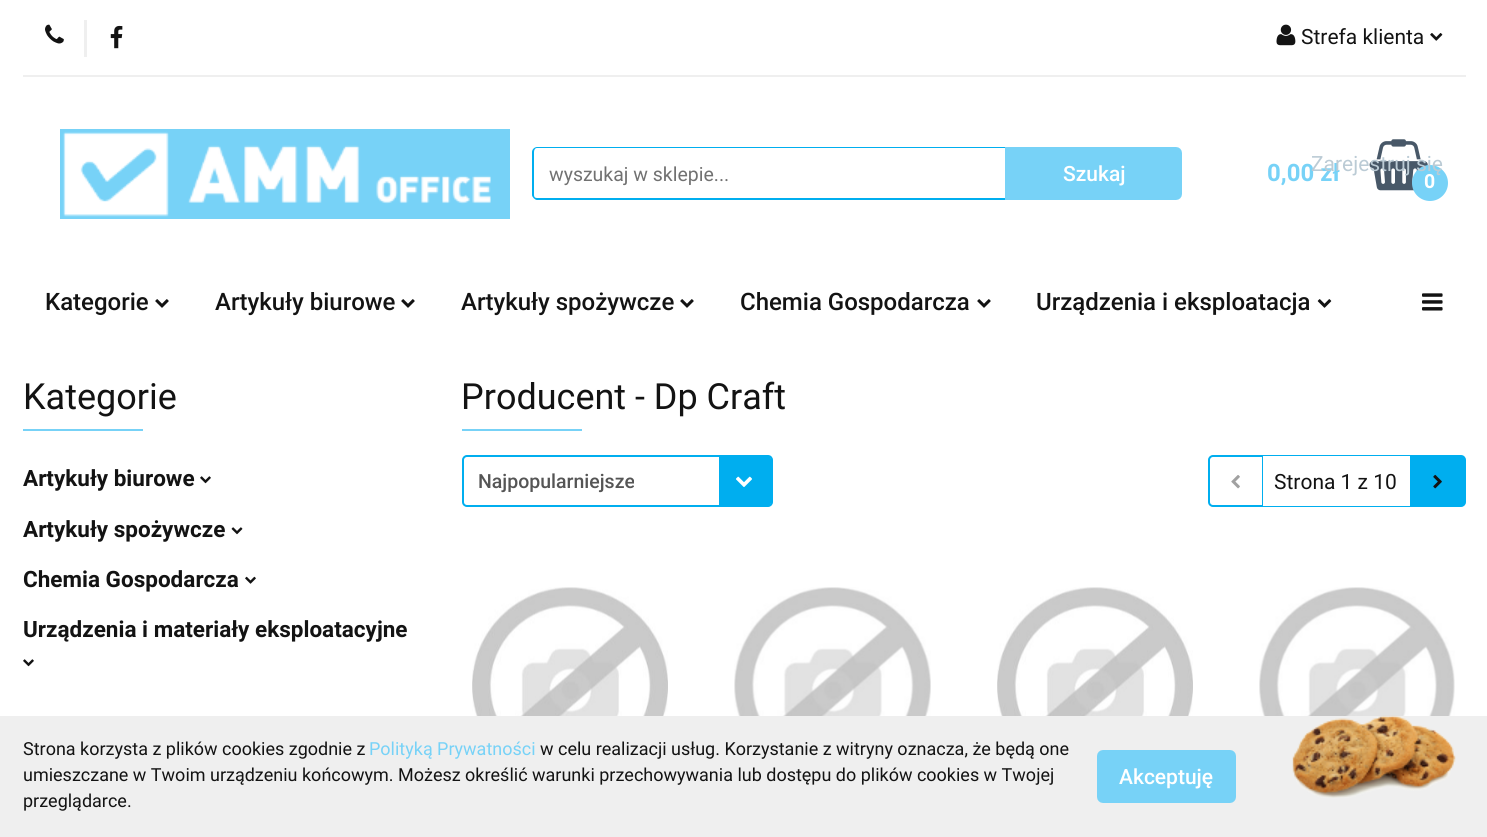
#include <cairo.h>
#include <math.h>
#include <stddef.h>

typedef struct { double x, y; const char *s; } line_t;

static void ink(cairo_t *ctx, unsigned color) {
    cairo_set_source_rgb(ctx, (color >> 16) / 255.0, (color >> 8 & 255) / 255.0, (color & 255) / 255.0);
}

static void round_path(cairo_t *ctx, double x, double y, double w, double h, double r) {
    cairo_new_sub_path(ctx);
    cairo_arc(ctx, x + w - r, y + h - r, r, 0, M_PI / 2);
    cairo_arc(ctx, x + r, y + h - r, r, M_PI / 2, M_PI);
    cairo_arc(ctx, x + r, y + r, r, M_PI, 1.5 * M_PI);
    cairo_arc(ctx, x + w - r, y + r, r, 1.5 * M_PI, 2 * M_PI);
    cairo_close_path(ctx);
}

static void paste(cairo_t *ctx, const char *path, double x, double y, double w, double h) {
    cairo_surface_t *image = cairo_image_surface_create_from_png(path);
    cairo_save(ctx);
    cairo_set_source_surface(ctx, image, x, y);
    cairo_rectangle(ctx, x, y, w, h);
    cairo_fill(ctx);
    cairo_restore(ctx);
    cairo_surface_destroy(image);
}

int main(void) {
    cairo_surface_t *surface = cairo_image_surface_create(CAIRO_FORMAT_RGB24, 1487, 837);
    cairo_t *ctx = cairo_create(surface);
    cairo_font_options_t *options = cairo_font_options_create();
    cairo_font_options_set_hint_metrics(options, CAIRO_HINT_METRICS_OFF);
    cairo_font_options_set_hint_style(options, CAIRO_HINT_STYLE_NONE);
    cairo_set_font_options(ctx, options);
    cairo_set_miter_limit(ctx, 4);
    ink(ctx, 0xFFFFFF);
    cairo_paint(ctx);
    ink(ctx, 0xEFEFEF);
    cairo_rectangle(ctx, 23, 75, 1443, 2);
    cairo_fill(ctx);
    paste(ctx, "media/1.png", 45, 24, 19, 20);
    cairo_rectangle(ctx, 84, 20, 3, 37);
    cairo_fill(ctx);
    paste(ctx, "media/2.png", 110, 25, 13, 24);
    paste(ctx, "media/3.png", 1276, 24, 20, 22);
    cairo_select_font_face(ctx, "Roboto", CAIRO_FONT_SLANT_NORMAL, CAIRO_FONT_WEIGHT_NORMAL);
    cairo_set_font_size(ctx, 21);
    ink(ctx, 0x131313);
    cairo_move_to(ctx, 1301, 44);
    cairo_show_text(ctx, "Strefa klienta");
    paste(ctx, "media/4.png", 1430, 33, 13, 8);
    cairo_select_font_face(ctx, "Roboto", CAIRO_FONT_SLANT_NORMAL, CAIRO_FONT_WEIGHT_BOLD);
    cairo_set_font_size(ctx, 24);
    ink(ctx, 0x77D2F7);
    cairo_move_to(ctx, 1267, 181);
    cairo_show_text(ctx, "0,00 zł");
    paste(ctx, "media/6.png", 1369, 139, 59, 52);
    cairo_arc(ctx, 1430, 183, 18, 0, 2 * M_PI);
    cairo_fill(ctx);
    cairo_select_font_face(ctx, "Roboto", CAIRO_FONT_SLANT_NORMAL, CAIRO_FONT_WEIGHT_NORMAL);
    cairo_set_font_size(ctx, 21);
    ink(ctx, 0xBBCBD5);
    cairo_move_to(ctx, 1311, 171);
    cairo_show_text(ctx, "Zarejestruj się");
    paste(ctx, "media/5.png", 60, 129, 450, 90);
    ink(ctx, 0x00AEEF);
    cairo_set_fill_rule(ctx, CAIRO_FILL_RULE_EVEN_ODD);
    cairo_new_path(ctx);
    cairo_move_to(ctx, 537, 147);
    cairo_line_to(ctx, 1005, 147);
    cairo_line_to(ctx, 1005, 200);
    cairo_line_to(ctx, 537, 200);
    cairo_curve_to(ctx, 535, 200, 532, 197, 532, 195);
    cairo_line_to(ctx, 532, 152);
    cairo_curve_to(ctx, 532, 149, 535, 147, 537, 147);
    cairo_close_path(ctx);
    cairo_move_to(ctx, 537, 148);
    cairo_line_to(ctx, 1005, 148);
    cairo_line_to(ctx, 1005, 198);
    cairo_line_to(ctx, 537, 198);
    cairo_curve_to(ctx, 535, 198, 534, 197, 534, 195);
    cairo_line_to(ctx, 534, 152);
    cairo_curve_to(ctx, 534, 150, 535, 148, 537, 148);
    cairo_close_path(ctx);
    cairo_fill(ctx);
    cairo_set_font_size(ctx, 19.5);
    ink(ctx, 0x717171);
    cairo_move_to(ctx, 549, 181);
    cairo_show_text(ctx, "wyszukaj w sklepie...");
    ink(ctx, 0x77D2F7);
    cairo_new_path(ctx);
    cairo_move_to(ctx, 1007.5, 149.5);
    cairo_line_to(ctx, 1176, 149.5);
    cairo_curve_to(ctx, 1178, 149.5, 1179.5, 151, 1179.5, 153);
    cairo_line_to(ctx, 1179.5, 194);
    cairo_curve_to(ctx, 1179.5, 196, 1178, 197.5, 1176, 197.5);
    cairo_line_to(ctx, 1007.5, 197.5);
    cairo_close_path(ctx);
    cairo_fill_preserve(ctx);
    cairo_set_line_width(ctx, 5);
    cairo_stroke(ctx);
    cairo_select_font_face(ctx, "Roboto Medium", CAIRO_FONT_SLANT_NORMAL, CAIRO_FONT_WEIGHT_NORMAL);
    cairo_set_font_size(ctx, 21);
    ink(ctx, 0xFFFFFF);
    cairo_move_to(ctx, 1063, 181);
    cairo_show_text(ctx, "Szukaj");
    cairo_select_font_face(ctx, "Roboto", CAIRO_FONT_SLANT_NORMAL, CAIRO_FONT_WEIGHT_BOLD);
    cairo_set_font_size(ctx, 19.5);
    cairo_move_to(ctx, 1424, 188);
    cairo_show_text(ctx, "0");
    cairo_select_font_face(ctx, "Roboto Medium", CAIRO_FONT_SLANT_NORMAL, CAIRO_FONT_WEIGHT_NORMAL);
    cairo_set_font_size(ctx, 24);
    ink(ctx, 0x131313);
    cairo_move_to(ctx, 45, 310);
    cairo_show_text(ctx, "Kategorie");
    paste(ctx, "media/7.png", 155, 299, 14, 9);
    cairo_move_to(ctx, 215, 310);
    cairo_show_text(ctx, "Artykuły biurowe");
    paste(ctx, "media/7.png", 401, 299, 14, 9);
    cairo_move_to(ctx, 461, 310);
    cairo_show_text(ctx, "Artykuły spożywcze");
    paste(ctx, "media/7.png", 680, 299, 14, 9);
    cairo_move_to(ctx, 740, 310);
    cairo_show_text(ctx, "Chemia Gospodarcza");
    paste(ctx, "media/7.png", 977, 299, 14, 9);
    cairo_move_to(ctx, 1036, 310);
    cairo_show_text(ctx, "Urządzenia i eksploatacja");
    paste(ctx, "media/8.png", 1317, 299, 15, 9);
    paste(ctx, "media/9.png", 1422, 293, 21, 18);
    cairo_select_font_face(ctx, "Roboto", CAIRO_FONT_SLANT_NORMAL, CAIRO_FONT_WEIGHT_NORMAL);
    cairo_set_font_size(ctx, 36);
    cairo_move_to(ctx, 23, 409);
    cairo_show_text(ctx, "Kategorie");
    ink(ctx, 0x77D2F7);
    cairo_rectangle(ctx, 23, 429, 120, 2);
    cairo_fill(ctx);
    cairo_select_font_face(ctx, "Roboto", CAIRO_FONT_SLANT_NORMAL, CAIRO_FONT_WEIGHT_BOLD);
    cairo_set_font_size(ctx, 22.5);
    ink(ctx, 0x131313);
    cairo_move_to(ctx, 23, 486);
    cairo_show_text(ctx, "Artykuły biurowe");
    paste(ctx, "media/10.png", 200, 476, 11, 8);
    cairo_move_to(ctx, 23, 537);
    cairo_show_text(ctx, "Artykuły spożywcze");
    paste(ctx, "media/11.png", 231, 527, 12, 8);
    cairo_move_to(ctx, 23, 587);
    cairo_show_text(ctx, "Chemia Gospodarcza");
    paste(ctx, "media/12.png", 245, 576, 11, 8);
    cairo_move_to(ctx, 23, 637);
    cairo_show_text(ctx, "Urządzenia i materiały eksploatacyjne");
    paste(ctx, "media/10.png", 23, 659, 11, 8);
    cairo_select_font_face(ctx, "Roboto", CAIRO_FONT_SLANT_NORMAL, CAIRO_FONT_WEIGHT_NORMAL);
    cairo_set_font_size(ctx, 36);
    cairo_move_to(ctx, 461, 409);
    cairo_show_text(ctx, "Producent - Dp Craft");
    ink(ctx, 0x77D2F7);
    cairo_rectangle(ctx, 462, 429, 120, 2);
    cairo_fill(ctx);
    round_path(ctx, 463, 456, 309, 50, 4);
    ink(ctx, 0x00AEEF);
    cairo_set_line_width(ctx, 2);
    cairo_stroke(ctx);
    cairo_select_font_face(ctx, "Roboto Medium", CAIRO_FONT_SLANT_NORMAL, CAIRO_FONT_WEIGHT_NORMAL);
    cairo_set_font_size(ctx, 19.5);
    ink(ctx, 0x555555);
    cairo_move_to(ctx, 478, 488);
    cairo_show_text(ctx, "Najpopularniejsze");
    ink(ctx, 0x00AEEF);
    cairo_new_path(ctx);
    cairo_move_to(ctx, 719, 456);
    cairo_line_to(ctx, 768, 456);
    cairo_curve_to(ctx, 769.5, 456, 771, 457.5, 771, 459);
    cairo_line_to(ctx, 771, 503);
    cairo_curve_to(ctx, 771, 504.5, 769.5, 506, 768, 506);
    cairo_line_to(ctx, 719, 506);
    cairo_close_path(ctx);
    cairo_fill(ctx);
    paste(ctx, "media/13.png", 736, 476, 16, 11);
    round_path(ctx, 1209, 456, 256, 50, 4);
    cairo_stroke(ctx);
    cairo_rectangle(ctx, 1262, 456, 1, 50);
    cairo_fill(ctx);
    paste(ctx, "media/14.png", 1231, 475, 9, 14);
    cairo_rectangle(ctx, 1410, 456, 2, 50);
    cairo_fill(ctx);
    ink(ctx, 0xFFFFFF);
    cairo_rectangle(ctx, 1263, 456, 147, 50);
    cairo_fill(ctx);
    cairo_select_font_face(ctx, "Roboto", CAIRO_FONT_SLANT_NORMAL, CAIRO_FONT_WEIGHT_NORMAL);
    cairo_set_font_size(ctx, 21);
    ink(ctx, 0x131313);
    cairo_move_to(ctx, 1274, 489);
    cairo_show_text(ctx, "Strona 1 z 10");
    ink(ctx, 0x00AEEF);
    cairo_rectangle(ctx, 1412, 457, 52, 48);
    cairo_fill(ctx);
    paste(ctx, "media/15.png", 1433, 474, 9, 15);
    paste(ctx, "media/16.png", 472, 587, 196, 129);
    paste(ctx, "media/17.png", 734, 587, 197, 129);
    paste(ctx, "media/16.png", 997, 587, 196, 129);
    paste(ctx, "media/18.png", 1259, 587, 196, 129);
    ink(ctx, 0xEFEFEF);
    cairo_rectangle(ctx, 0, 716, 1487, 121);
    cairo_fill(ctx);
    cairo_set_font_size(ctx, 18);
    ink(ctx, 0x131313);
    cairo_move_to(ctx, 23, 755);
    cairo_show_text(ctx, "Strona korzysta z plików cookies zgodnie z");
    ink(ctx, 0x77D2F7);
    cairo_move_to(ctx, 369, 755);
    cairo_show_text(ctx, "Polityką Prywatności");
    ink(ctx, 0x131313);
    {
        static const line_t items[] = {
            {540, 755, "w celu realizacji usług. Korzystanie z witryny oznacza, że będą one"},
            {23, 781, "umieszczane w Twoim urządzeniu końcowym. Możesz określić warunki przechowywania lub dostępu do plików cookies w Twojej"},
            {23, 807, "przeglądarce."},
        };
        for (size_t i = 0; i < sizeof items / sizeof *items; i++) {
            cairo_move_to(ctx, items[i].x, items[i].y);
            cairo_show_text(ctx, items[i].s);
        }
    }
    ink(ctx, 0x77D2F7);
    round_path(ctx, 1099.5, 752.5, 134, 48, 3.5);
    cairo_fill_preserve(ctx);
    cairo_set_line_width(ctx, 5);
    cairo_stroke(ctx);
    cairo_select_font_face(ctx, "Roboto Medium", CAIRO_FONT_SLANT_NORMAL, CAIRO_FONT_WEIGHT_NORMAL);
    cairo_set_font_size(ctx, 21);
    ink(ctx, 0xFFFFFF);
    cairo_move_to(ctx, 1119, 784);
    cairo_show_text(ctx, "Akceptuję");
    paste(ctx, "media/19.png", 1292, 715, 164, 83);
    cairo_surface_write_to_png(surface, "image.png");
    cairo_font_options_destroy(options);
    cairo_destroy(ctx);
    cairo_surface_destroy(surface);
    return 0;
}
